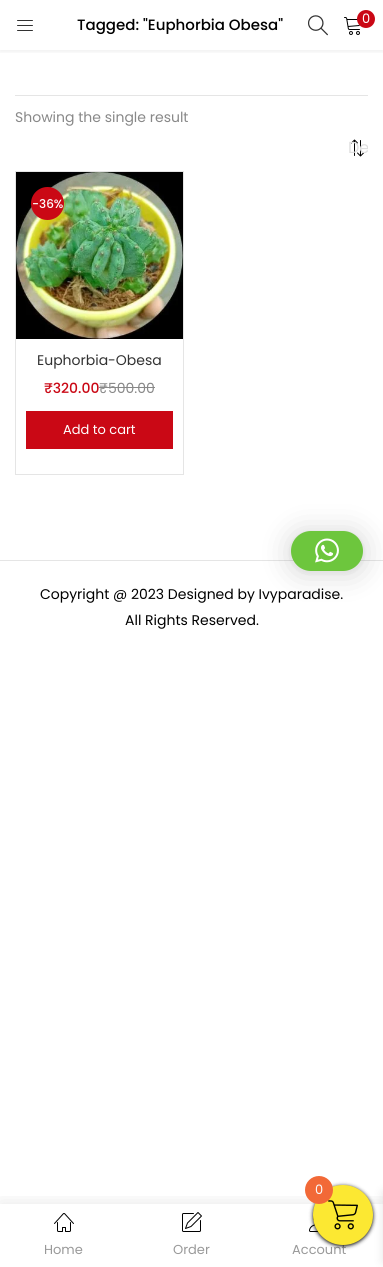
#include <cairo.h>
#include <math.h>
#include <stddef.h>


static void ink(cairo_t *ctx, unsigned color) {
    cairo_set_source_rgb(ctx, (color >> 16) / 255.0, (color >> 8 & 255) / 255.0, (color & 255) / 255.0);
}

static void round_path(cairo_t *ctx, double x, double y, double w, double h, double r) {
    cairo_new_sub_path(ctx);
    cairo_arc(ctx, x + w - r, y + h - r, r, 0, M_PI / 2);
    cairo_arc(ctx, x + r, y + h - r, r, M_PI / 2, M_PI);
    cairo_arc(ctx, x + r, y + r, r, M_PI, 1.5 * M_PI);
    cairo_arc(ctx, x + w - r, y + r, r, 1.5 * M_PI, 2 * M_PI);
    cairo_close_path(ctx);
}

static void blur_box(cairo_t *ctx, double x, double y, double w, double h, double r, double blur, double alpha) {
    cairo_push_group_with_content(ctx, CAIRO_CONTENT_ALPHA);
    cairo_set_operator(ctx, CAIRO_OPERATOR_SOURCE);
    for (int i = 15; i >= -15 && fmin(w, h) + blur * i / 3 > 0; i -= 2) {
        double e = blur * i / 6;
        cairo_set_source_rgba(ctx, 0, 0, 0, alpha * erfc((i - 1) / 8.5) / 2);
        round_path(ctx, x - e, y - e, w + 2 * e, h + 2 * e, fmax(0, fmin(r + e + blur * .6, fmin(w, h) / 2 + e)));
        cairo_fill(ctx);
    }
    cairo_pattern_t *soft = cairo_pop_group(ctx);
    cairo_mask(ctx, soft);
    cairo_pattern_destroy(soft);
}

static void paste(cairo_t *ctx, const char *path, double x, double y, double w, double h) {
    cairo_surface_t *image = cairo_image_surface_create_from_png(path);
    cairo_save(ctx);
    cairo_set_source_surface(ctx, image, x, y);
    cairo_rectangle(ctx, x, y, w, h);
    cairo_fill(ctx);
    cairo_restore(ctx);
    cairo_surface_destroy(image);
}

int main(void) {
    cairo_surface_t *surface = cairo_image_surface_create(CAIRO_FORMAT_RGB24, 383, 1267);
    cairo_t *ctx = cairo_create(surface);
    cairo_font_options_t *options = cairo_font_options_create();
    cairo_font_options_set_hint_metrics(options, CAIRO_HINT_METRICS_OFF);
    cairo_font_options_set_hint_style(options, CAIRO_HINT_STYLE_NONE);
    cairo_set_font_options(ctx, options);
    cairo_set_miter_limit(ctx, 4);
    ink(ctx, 0xFFFFFF);
    cairo_paint(ctx);
    cairo_save(ctx);
    cairo_rectangle(ctx, 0, 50, 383, 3);
    cairo_clip(ctx);
    ink(ctx, 0x000000);
    blur_box(ctx, 0, 0, 383, 50, 0, 4, 0.1);
    cairo_restore(ctx);
    paste(ctx, "media/1.png", 17, 20, 16, 11);
    cairo_select_font_face(ctx, "Poppins Medium", CAIRO_FONT_SLANT_NORMAL, CAIRO_FONT_WEIGHT_NORMAL);
    cairo_set_font_size(ctx, 15);
    ink(ctx, 0x000000);
    cairo_move_to(ctx, 77, 30);
    cairo_show_text(ctx, "Tagged: \"Euphorbia Obesa\"");
    paste(ctx, "media/2.png", 308, 15, 20, 21);
    paste(ctx, "media/3.png", 344, 17, 16, 18);
    ink(ctx, 0xCA0815);
    cairo_arc(ctx, 366, 19, 9, 0, 2 * M_PI);
    cairo_fill(ctx);
    cairo_select_font_face(ctx, "Poppins", CAIRO_FONT_SLANT_NORMAL, CAIRO_FONT_WEIGHT_NORMAL);
    cairo_set_font_size(ctx, 13);
    ink(ctx, 0xFFFFFF);
    cairo_move_to(ctx, 362, 23);
    cairo_show_text(ctx, "0");
    ink(ctx, 0xE5E5E5);
    cairo_rectangle(ctx, 15, 95, 353, 1);
    cairo_fill(ctx);
    cairo_set_font_size(ctx, 14);
    ink(ctx, 0x888888);
    cairo_move_to(ctx, 15, 122);
    cairo_show_text(ctx, "Showing the single result");
    paste(ctx, "media/4.png", 351, 139, 13, 18);
    cairo_save(ctx);
    cairo_rectangle(ctx, 348, 133, 20, 30);
    cairo_clip(ctx);
    cairo_set_font_size(ctx, 16);
    ink(ctx, 0xE0E0E0);
    cairo_move_to(ctx, 348, 153);
    cairo_show_text(ctx, "De");
    cairo_restore(ctx);
    cairo_rectangle(ctx, 15.5, 171.5, 168, 303);
    ink(ctx, 0xE5E5E5);
    cairo_set_line_width(ctx, 1);
    cairo_stroke(ctx);
    paste(ctx, "media/5.png", 16, 172, 167, 167);
    ink(ctx, 0xCA0815);
    cairo_arc(ctx, 47.5, 203.5, 16.5, 0, 2 * M_PI);
    cairo_fill(ctx);
    cairo_select_font_face(ctx, "Poppins Medium", CAIRO_FONT_SLANT_NORMAL, CAIRO_FONT_WEIGHT_NORMAL);
    cairo_set_font_size(ctx, 12);
    ink(ctx, 0xFFFFFF);
    cairo_move_to(ctx, 32, 208);
    cairo_show_text(ctx, "-36%");
    cairo_select_font_face(ctx, "Poppins", CAIRO_FONT_SLANT_NORMAL, CAIRO_FONT_WEIGHT_NORMAL);
    cairo_set_font_size(ctx, 14);
    ink(ctx, 0x323232);
    cairo_move_to(ctx, 37, 365);
    cairo_show_text(ctx, "Euphorbia-Obesa");
    cairo_select_font_face(ctx, "Poppins Medium", CAIRO_FONT_SLANT_NORMAL, CAIRO_FONT_WEIGHT_NORMAL);
    ink(ctx, 0xCA0815);
    cairo_move_to(ctx, 44, 393);
    cairo_show_text(ctx, "₹320.00");
    cairo_select_font_face(ctx, "Poppins", CAIRO_FONT_SLANT_NORMAL, CAIRO_FONT_WEIGHT_NORMAL);
    ink(ctx, 0x888888);
    cairo_move_to(ctx, 99, 393);
    cairo_show_text(ctx, "₹500.00");
    cairo_rectangle(ctx, 99, 387, 56, 1);
    cairo_fill(ctx);
    ink(ctx, 0xCA0815);
    cairo_rectangle(ctx, 26, 411, 147, 38);
    cairo_fill(ctx);
    cairo_set_font_size(ctx, 13);
    ink(ctx, 0xFFFFFF);
    cairo_move_to(ctx, 63, 434);
    cairo_show_text(ctx, "Add to cart");
    ink(ctx, 0xE5E5E5);
    cairo_rectangle(ctx, 0, 560, 383, 1);
    cairo_fill(ctx);
    cairo_set_font_size(ctx, 14);
    ink(ctx, 0x000000);
    cairo_move_to(ctx, 40, 599);
    cairo_show_text(ctx, "Copyright @ 2023 Designed by Ivyparadise.");
    cairo_move_to(ctx, 125, 625);
    cairo_show_text(ctx, "All Rights Reserved.");
    cairo_save(ctx);
    cairo_rectangle(ctx, 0, 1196, 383, 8);
    cairo_clip(ctx);
    ink(ctx, 0x000000);
    blur_box(ctx, 0, 1204, 383, 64, 0, 10, 0.1);
    cairo_restore(ctx);
    paste(ctx, "media/6.png", 54, 1213, 20, 19);
    cairo_set_font_size(ctx, 13);
    ink(ctx, 0x999999);
    cairo_move_to(ctx, 44, 1254);
    cairo_show_text(ctx, "Home");
    paste(ctx, "media/7.png", 182, 1212, 20, 20);
    cairo_move_to(ctx, 173, 1254);
    cairo_show_text(ctx, "Order");
    paste(ctx, "media/8.png", 309, 1214, 10, 18);
    cairo_move_to(ctx, 292, 1254);
    cairo_show_text(ctx, "Account");
    ink(ctx, 0x000000);
    blur_box(ctx, 291, 533, 72, 40, 20, 16, 0.16);
    blur_box(ctx, 291, 532, 72, 40, 20, 3, 0.06);
    ink(ctx, 0x6DC63D);
    round_path(ctx, 291, 531, 72, 40, 20);
    cairo_fill(ctx);
    paste(ctx, "media/9.png", 315, 538, 24, 25);
    ink(ctx, 0x000000);
    blur_box(ctx, 313, 1186, 60, 60, 30, 2, 1);
    blur_box(ctx, 383, 1192, 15, 70, 0, 5, 0.1);
    ink(ctx, 0xFCE832);
    cairo_arc(ctx, 343, 1215, 30, 0, 2 * M_PI);
    cairo_fill(ctx);
    paste(ctx, "media/10.png", 328, 1200, 30, 30);
    ink(ctx, 0xF26937);
    cairo_arc(ctx, 319, 1190, 14, 0, 2 * M_PI);
    cairo_fill(ctx);
    ink(ctx, 0xF9F9F9);
    cairo_move_to(ctx, 315, 1194);
    cairo_show_text(ctx, "0");
    cairo_surface_write_to_png(surface, "image.png");
    cairo_font_options_destroy(options);
    cairo_destroy(ctx);
    cairo_surface_destroy(surface);
    return 0;
}
